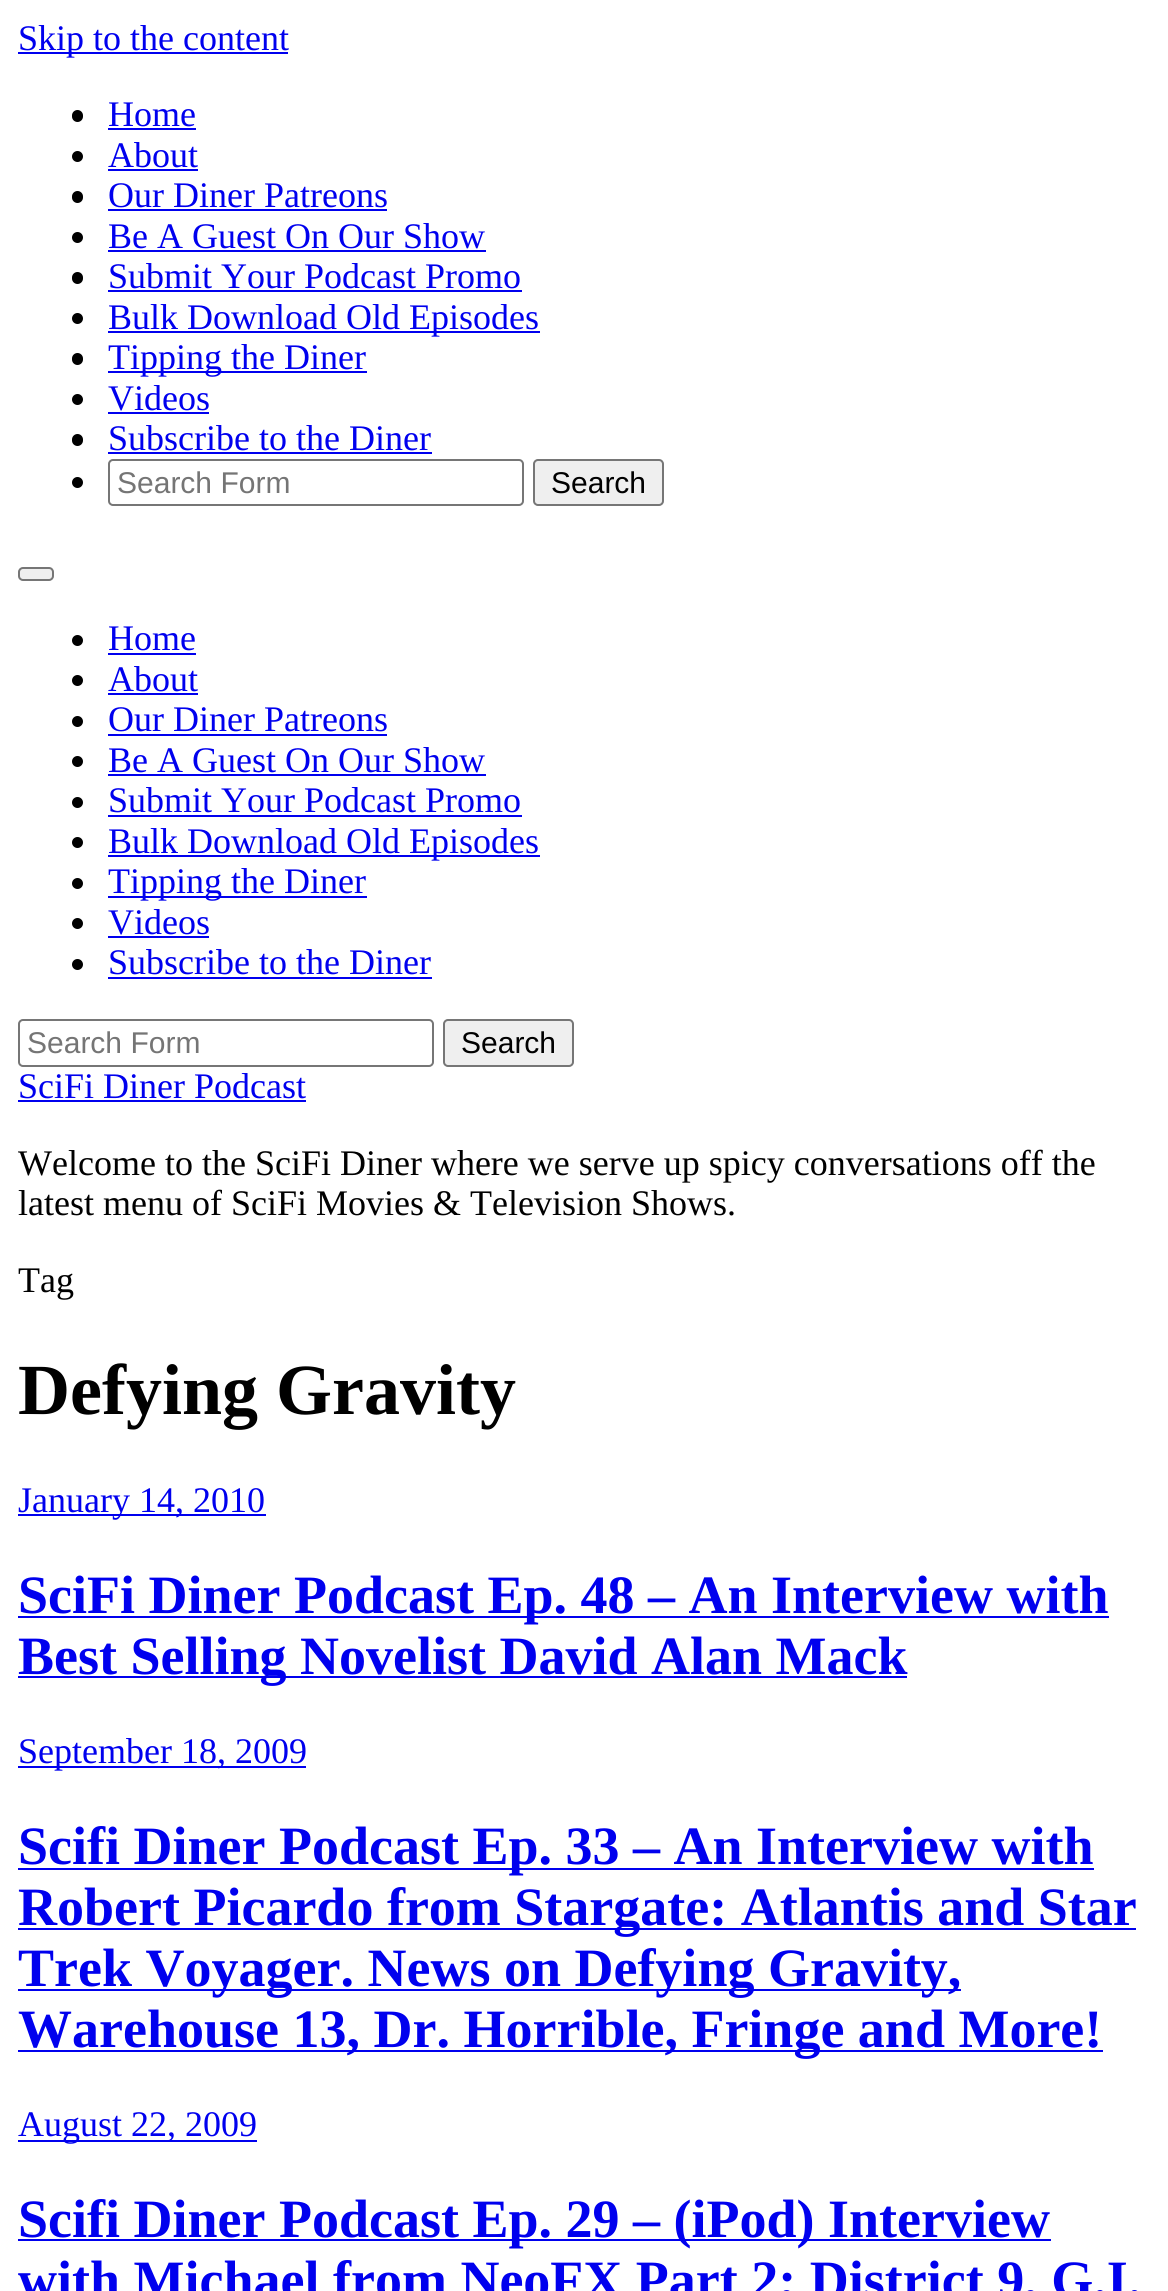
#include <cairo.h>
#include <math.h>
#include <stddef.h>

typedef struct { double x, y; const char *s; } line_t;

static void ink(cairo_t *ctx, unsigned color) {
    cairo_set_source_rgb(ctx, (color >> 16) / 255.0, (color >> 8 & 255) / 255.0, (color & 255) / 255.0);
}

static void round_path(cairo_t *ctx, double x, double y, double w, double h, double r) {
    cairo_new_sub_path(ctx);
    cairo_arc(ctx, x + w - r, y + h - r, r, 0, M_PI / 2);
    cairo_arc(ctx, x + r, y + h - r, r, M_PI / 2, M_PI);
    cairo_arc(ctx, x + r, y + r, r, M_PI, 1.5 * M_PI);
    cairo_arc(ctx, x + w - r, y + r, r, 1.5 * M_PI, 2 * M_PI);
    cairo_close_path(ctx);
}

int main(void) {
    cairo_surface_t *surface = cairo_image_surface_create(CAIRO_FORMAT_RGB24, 1168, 2291);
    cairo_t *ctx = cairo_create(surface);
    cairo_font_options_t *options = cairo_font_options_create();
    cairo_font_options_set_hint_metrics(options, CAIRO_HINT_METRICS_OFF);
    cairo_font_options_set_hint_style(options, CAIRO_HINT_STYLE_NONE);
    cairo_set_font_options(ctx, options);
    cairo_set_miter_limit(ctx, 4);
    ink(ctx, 0xFFFFFF);
    cairo_paint(ctx);
    ink(ctx, 0x0000EE);
    cairo_rectangle(ctx, 18, 52, 270, 2);
    cairo_fill(ctx);
    cairo_select_font_face(ctx, "Liberation Serif", CAIRO_FONT_SLANT_NORMAL, CAIRO_FONT_WEIGHT_NORMAL);
    cairo_set_font_size(ctx, 36);
    cairo_move_to(ctx, 18, 50);
    cairo_show_text(ctx, "Skip to the content");
    ink(ctx, 0x000000);
    round_path(ctx, 72, 110, 11, 12, 5.5);
    cairo_fill(ctx);
    ink(ctx, 0x0000EE);
    cairo_move_to(ctx, 108, 126);
    cairo_show_text(ctx, "Home");
    cairo_rectangle(ctx, 108, 128, 88, 2);
    cairo_fill(ctx);
    ink(ctx, 0x000000);
    cairo_arc(ctx, 77.5, 156.5, 5.5, 0, 2 * M_PI);
    cairo_fill(ctx);
    ink(ctx, 0x0000EE);
    cairo_move_to(ctx, 108, 167);
    cairo_show_text(ctx, "About");
    cairo_rectangle(ctx, 108, 169, 90, 2);
    cairo_fill(ctx);
    ink(ctx, 0x000000);
    round_path(ctx, 72, 191, 11, 12, 5.5);
    cairo_fill(ctx);
    ink(ctx, 0x0000EE);
    cairo_move_to(ctx, 108, 207);
    cairo_show_text(ctx, "Our Diner Patreons");
    cairo_rectangle(ctx, 108, 209, 279, 2);
    cairo_fill(ctx);
    ink(ctx, 0x000000);
    cairo_arc(ctx, 77.5, 237.5, 5.5, 0, 2 * M_PI);
    cairo_fill(ctx);
    ink(ctx, 0x0000EE);
    cairo_move_to(ctx, 108, 248);
    cairo_show_text(ctx, "Be A Guest On Our Show");
    cairo_rectangle(ctx, 108, 250, 378, 2);
    cairo_fill(ctx);
    ink(ctx, 0x000000);
    round_path(ctx, 72, 272, 11, 12, 5.5);
    cairo_fill(ctx);
    ink(ctx, 0x0000EE);
    cairo_move_to(ctx, 108, 288);
    cairo_show_text(ctx, "Submit Your Podcast Promo");
    cairo_rectangle(ctx, 108, 290, 414, 2);
    cairo_fill(ctx);
    ink(ctx, 0x000000);
    cairo_arc(ctx, 77.5, 318.5, 5.5, 0, 2 * M_PI);
    cairo_fill(ctx);
    ink(ctx, 0x0000EE);
    cairo_rectangle(ctx, 108, 331, 432, 2);
    cairo_fill(ctx);
    cairo_move_to(ctx, 108, 329);
    cairo_show_text(ctx, "Bulk Download Old Episodes");
    ink(ctx, 0x000000);
    round_path(ctx, 72, 353, 11, 12, 5.5);
    cairo_fill(ctx);
    ink(ctx, 0x0000EE);
    cairo_rectangle(ctx, 108, 371, 259, 2);
    cairo_fill(ctx);
    cairo_move_to(ctx, 108, 369);
    cairo_show_text(ctx, "Tipping the Diner");
    ink(ctx, 0x000000);
    cairo_new_path(ctx);
    cairo_arc(ctx, 77.5, 399.5, 5.5, 0, 2 * M_PI);
    cairo_fill(ctx);
    ink(ctx, 0x0000EE);
    cairo_move_to(ctx, 108, 410);
    cairo_show_text(ctx, "Videos");
    cairo_rectangle(ctx, 108, 412, 101, 2);
    cairo_fill(ctx);
    ink(ctx, 0x000000);
    round_path(ctx, 72, 434, 11, 12, 5.5);
    cairo_fill(ctx);
    ink(ctx, 0x0000EE);
    cairo_move_to(ctx, 108, 450);
    cairo_show_text(ctx, "Subscribe to the Diner");
    cairo_rectangle(ctx, 108, 452, 324, 2);
    cairo_fill(ctx);
    ink(ctx, 0x000000);
    cairo_arc(ctx, 77.5, 482.5, 5.5, 0, 2 * M_PI);
    cairo_fill(ctx);
    round_path(ctx, 109, 460, 414, 45, 4);
    ink(ctx, 0x767676);
    cairo_stroke(ctx);
    cairo_select_font_face(ctx, "Liberation Sans", CAIRO_FONT_SLANT_NORMAL, CAIRO_FONT_WEIGHT_NORMAL);
    cairo_set_font_size(ctx, 30);
    ink(ctx, 0x757575);
    cairo_move_to(ctx, 117, 493);
    cairo_show_text(ctx, "Search Form");
    ink(ctx, 0xEFEFEF);
    round_path(ctx, 534, 460, 129, 45, 4);
    cairo_fill_preserve(ctx);
    ink(ctx, 0x767676);
    cairo_stroke(ctx);
    ink(ctx, 0x000000);
    cairo_move_to(ctx, 551, 493);
    cairo_show_text(ctx, "Search");
    ink(ctx, 0xEFEFEF);
    round_path(ctx, 19, 568, 34, 12, 4);
    cairo_fill_preserve(ctx);
    ink(ctx, 0x767676);
    cairo_stroke(ctx);
    ink(ctx, 0x000000);
    cairo_arc(ctx, 77.5, 640.5, 5.5, 0, 2 * M_PI);
    cairo_fill(ctx);
    cairo_select_font_face(ctx, "Liberation Serif", CAIRO_FONT_SLANT_NORMAL, CAIRO_FONT_WEIGHT_NORMAL);
    cairo_set_font_size(ctx, 36);
    ink(ctx, 0x0000EE);
    cairo_move_to(ctx, 108, 650);
    cairo_show_text(ctx, "Home");
    cairo_rectangle(ctx, 108, 653, 88, 2);
    cairo_fill(ctx);
    ink(ctx, 0x000000);
    cairo_arc(ctx, 77.5, 680.5, 5.5, 0, 2 * M_PI);
    cairo_fill(ctx);
    ink(ctx, 0x0000EE);
    cairo_move_to(ctx, 108, 691);
    cairo_show_text(ctx, "About");
    cairo_rectangle(ctx, 108, 693, 90, 2);
    cairo_fill(ctx);
    ink(ctx, 0x000000);
    cairo_arc(ctx, 77.5, 721.5, 5.5, 0, 2 * M_PI);
    cairo_fill(ctx);
    ink(ctx, 0x0000EE);
    cairo_move_to(ctx, 108, 731);
    cairo_show_text(ctx, "Our Diner Patreons");
    cairo_rectangle(ctx, 108, 734, 279, 2);
    cairo_fill(ctx);
    ink(ctx, 0x000000);
    cairo_arc(ctx, 77.5, 761.5, 5.5, 0, 2 * M_PI);
    cairo_fill(ctx);
    ink(ctx, 0x0000EE);
    cairo_move_to(ctx, 108, 772);
    cairo_show_text(ctx, "Be A Guest On Our Show");
    cairo_rectangle(ctx, 108, 774, 378, 2);
    cairo_fill(ctx);
    ink(ctx, 0x000000);
    cairo_arc(ctx, 77.5, 802.5, 5.5, 0, 2 * M_PI);
    cairo_fill(ctx);
    ink(ctx, 0x0000EE);
    cairo_move_to(ctx, 108, 812);
    cairo_show_text(ctx, "Submit Your Podcast Promo");
    cairo_rectangle(ctx, 108, 815, 414, 2);
    cairo_fill(ctx);
    ink(ctx, 0x000000);
    cairo_arc(ctx, 77.5, 842.5, 5.5, 0, 2 * M_PI);
    cairo_fill(ctx);
    ink(ctx, 0x0000EE);
    cairo_rectangle(ctx, 108, 855, 432, 2);
    cairo_fill(ctx);
    cairo_move_to(ctx, 108, 853);
    cairo_show_text(ctx, "Bulk Download Old Episodes");
    ink(ctx, 0x000000);
    cairo_new_path(ctx);
    cairo_arc(ctx, 77.5, 883.5, 5.5, 0, 2 * M_PI);
    cairo_fill(ctx);
    ink(ctx, 0x0000EE);
    cairo_rectangle(ctx, 108, 896, 259, 2);
    cairo_fill(ctx);
    cairo_move_to(ctx, 108, 893);
    cairo_show_text(ctx, "Tipping the Diner");
    ink(ctx, 0x000000);
    cairo_new_path(ctx);
    cairo_arc(ctx, 77.5, 923.5, 5.5, 0, 2 * M_PI);
    cairo_fill(ctx);
    ink(ctx, 0x0000EE);
    cairo_move_to(ctx, 108, 934);
    cairo_show_text(ctx, "Videos");
    cairo_rectangle(ctx, 108, 936, 101, 2);
    cairo_fill(ctx);
    ink(ctx, 0x000000);
    cairo_arc(ctx, 77.5, 964.5, 5.5, 0, 2 * M_PI);
    cairo_fill(ctx);
    ink(ctx, 0x0000EE);
    cairo_move_to(ctx, 108, 974);
    cairo_show_text(ctx, "Subscribe to the Diner");
    cairo_rectangle(ctx, 108, 977, 324, 2);
    cairo_fill(ctx);
    round_path(ctx, 19, 1020, 414, 46, 4);
    ink(ctx, 0x767676);
    cairo_stroke(ctx);
    cairo_select_font_face(ctx, "Liberation Sans", CAIRO_FONT_SLANT_NORMAL, CAIRO_FONT_WEIGHT_NORMAL);
    cairo_set_font_size(ctx, 30);
    ink(ctx, 0x757575);
    cairo_move_to(ctx, 27, 1053);
    cairo_show_text(ctx, "Search Form");
    ink(ctx, 0xEFEFEF);
    round_path(ctx, 444, 1020, 129, 46, 4);
    cairo_fill_preserve(ctx);
    ink(ctx, 0x767676);
    cairo_stroke(ctx);
    ink(ctx, 0x000000);
    cairo_move_to(ctx, 461, 1053);
    cairo_show_text(ctx, "Search");
    cairo_select_font_face(ctx, "Liberation Serif", CAIRO_FONT_SLANT_NORMAL, CAIRO_FONT_WEIGHT_NORMAL);
    cairo_set_font_size(ctx, 36);
    ink(ctx, 0x0000EE);
    cairo_move_to(ctx, 18, 1098);
    cairo_show_text(ctx, "SciFi Diner Podcast");
    cairo_rectangle(ctx, 18, 1100, 288, 2);
    cairo_fill(ctx);
    ink(ctx, 0x000000);
    {
        static const line_t items[] = {
            {18, 1175, "Welcome to the SciFi Diner where we serve up spicy conversations off the"},
            {18, 1215, "latest menu of SciFi Movies & Television Shows."},
            {18, 1292, "Tag"},
        };
        for (size_t i = 0; i < sizeof items / sizeof *items; i++) {
            cairo_move_to(ctx, items[i].x, items[i].y);
            cairo_show_text(ctx, items[i].s);
        }
    }
    cairo_select_font_face(ctx, "Liberation Serif", CAIRO_FONT_SLANT_NORMAL, CAIRO_FONT_WEIGHT_BOLD);
    cairo_set_font_size(ctx, 72);
    cairo_move_to(ctx, 18, 1414);
    cairo_show_text(ctx, "Defying Gravity");
    ink(ctx, 0x0000EE);
    cairo_rectangle(ctx, 18, 1514, 248, 2);
    cairo_fill(ctx);
    cairo_select_font_face(ctx, "Liberation Serif", CAIRO_FONT_SLANT_NORMAL, CAIRO_FONT_WEIGHT_NORMAL);
    cairo_set_font_size(ctx, 36);
    cairo_move_to(ctx, 18, 1512);
    cairo_show_text(ctx, "January 14, 2010");
    cairo_rectangle(ctx, 18, 1616, 1091, 2);
    cairo_fill(ctx);
    cairo_select_font_face(ctx, "Liberation Serif", CAIRO_FONT_SLANT_NORMAL, CAIRO_FONT_WEIGHT_BOLD);
    cairo_set_font_size(ctx, 54);
    cairo_move_to(ctx, 18, 1613);
    cairo_show_text(ctx, "SciFi Diner Podcast Ep. 48 – An Interview with");
    cairo_rectangle(ctx, 18, 1676, 889, 2);
    cairo_fill(ctx);
    cairo_move_to(ctx, 18, 1674);
    cairo_show_text(ctx, "Best Selling Novelist David Alan Mack");
    cairo_rectangle(ctx, 18, 1766, 288, 2);
    cairo_fill(ctx);
    cairo_select_font_face(ctx, "Liberation Serif", CAIRO_FONT_SLANT_NORMAL, CAIRO_FONT_WEIGHT_NORMAL);
    cairo_set_font_size(ctx, 36);
    cairo_move_to(ctx, 18, 1763);
    cairo_show_text(ctx, "September 18, 2009");
    cairo_rectangle(ctx, 18, 1868, 1076, 2);
    cairo_fill(ctx);
    cairo_select_font_face(ctx, "Liberation Serif", CAIRO_FONT_SLANT_NORMAL, CAIRO_FONT_WEIGHT_BOLD);
    cairo_set_font_size(ctx, 54);
    cairo_move_to(ctx, 18, 1864);
    cairo_show_text(ctx, "Scifi Diner Podcast Ep. 33 – An Interview with");
    cairo_rectangle(ctx, 18, 1928, 1118, 2);
    cairo_fill(ctx);
    cairo_move_to(ctx, 18, 1925);
    cairo_show_text(ctx, "Robert Picardo from Stargate: Atlantis and Star");
    cairo_rectangle(ctx, 18, 1989, 943, 2);
    cairo_fill(ctx);
    cairo_move_to(ctx, 18, 1986);
    cairo_show_text(ctx, "Trek Voyager. News on Defying Gravity,");
    cairo_rectangle(ctx, 18, 2050, 1085, 2);
    cairo_fill(ctx);
    cairo_move_to(ctx, 18, 2047);
    cairo_show_text(ctx, "Warehouse 13, Dr. Horrible, Fringe and More!");
    cairo_rectangle(ctx, 18, 2140, 239, 2);
    cairo_fill(ctx);
    cairo_select_font_face(ctx, "Liberation Serif", CAIRO_FONT_SLANT_NORMAL, CAIRO_FONT_WEIGHT_NORMAL);
    cairo_set_font_size(ctx, 36);
    cairo_move_to(ctx, 18, 2136);
    cairo_show_text(ctx, "August 22, 2009");
    cairo_rectangle(ctx, 18, 2239, 1033, 2);
    cairo_fill(ctx);
    cairo_select_font_face(ctx, "Liberation Serif", CAIRO_FONT_SLANT_NORMAL, CAIRO_FONT_WEIGHT_BOLD);
    cairo_set_font_size(ctx, 54);
    cairo_move_to(ctx, 18, 2237);
    cairo_show_text(ctx, "Scifi Diner Podcast Ep. 29 – (iPod) Interview");
    cairo_move_to(ctx, 18, 2298);
    cairo_show_text(ctx, "with Michael from NeoFX Part 2; District 9, G.I.");
    cairo_surface_write_to_png(surface, "image.png");
    cairo_font_options_destroy(options);
    cairo_destroy(ctx);
    cairo_surface_destroy(surface);
    return 0;
}
